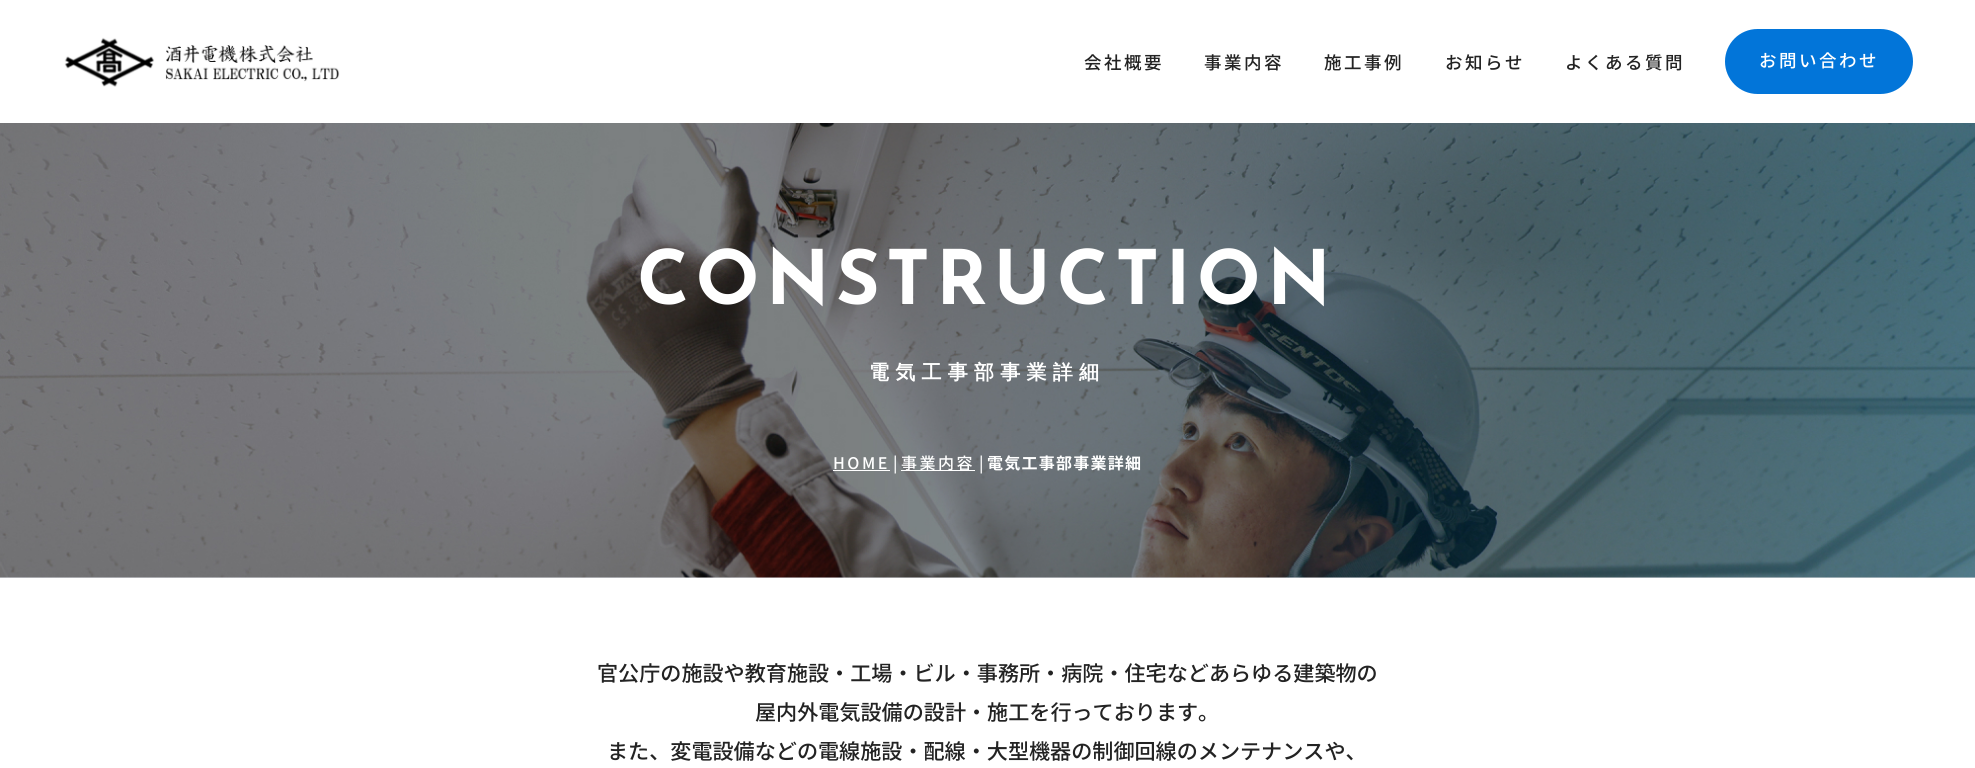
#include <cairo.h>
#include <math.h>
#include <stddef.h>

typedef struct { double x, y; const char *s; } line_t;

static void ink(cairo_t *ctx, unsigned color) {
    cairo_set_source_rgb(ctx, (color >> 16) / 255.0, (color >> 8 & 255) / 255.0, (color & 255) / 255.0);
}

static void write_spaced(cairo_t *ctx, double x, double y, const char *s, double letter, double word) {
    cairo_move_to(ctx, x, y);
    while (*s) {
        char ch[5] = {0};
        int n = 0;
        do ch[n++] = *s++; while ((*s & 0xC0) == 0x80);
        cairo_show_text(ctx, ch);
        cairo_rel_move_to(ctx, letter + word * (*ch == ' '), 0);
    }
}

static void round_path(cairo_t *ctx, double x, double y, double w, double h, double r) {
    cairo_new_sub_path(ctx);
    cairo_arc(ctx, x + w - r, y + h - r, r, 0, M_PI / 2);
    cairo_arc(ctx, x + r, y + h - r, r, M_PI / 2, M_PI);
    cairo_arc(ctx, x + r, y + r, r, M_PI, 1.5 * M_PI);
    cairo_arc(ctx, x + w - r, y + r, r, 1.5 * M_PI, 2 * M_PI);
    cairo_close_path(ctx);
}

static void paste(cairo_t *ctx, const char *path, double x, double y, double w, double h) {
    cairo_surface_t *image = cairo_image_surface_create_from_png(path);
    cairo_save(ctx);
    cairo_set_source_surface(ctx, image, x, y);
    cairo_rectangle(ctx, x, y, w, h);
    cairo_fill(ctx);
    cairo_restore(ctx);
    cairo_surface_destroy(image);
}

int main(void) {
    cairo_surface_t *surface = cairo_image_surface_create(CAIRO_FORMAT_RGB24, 1975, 768);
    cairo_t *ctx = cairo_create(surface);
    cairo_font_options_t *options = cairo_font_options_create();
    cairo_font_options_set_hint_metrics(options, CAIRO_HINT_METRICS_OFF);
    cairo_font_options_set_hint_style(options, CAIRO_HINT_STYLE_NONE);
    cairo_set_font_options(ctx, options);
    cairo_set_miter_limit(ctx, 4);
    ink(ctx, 0xE3E4EB);
    cairo_paint(ctx);
    ink(ctx, 0xFFFFFF);
    cairo_rectangle(ctx, 0, 0, 1975, 123);
    cairo_fill(ctx);
    paste(ctx, "media/1.png", 64, 37, 276, 50);
    cairo_select_font_face(ctx, "Noto Sans JP Thin", CAIRO_FONT_SLANT_NORMAL, CAIRO_FONT_WEIGHT_NORMAL);
    cairo_set_font_size(ctx, 17.5);
    ink(ctx, 0x232323);
    {
        static const line_t items[] = {
            {1084, 69, "会社概要"},
            {1204, 69, "事業内容"},
            {1324, 69, "施工事例"},
            {1445, 69, "お知らせ"},
            {1565, 69, "よくある質問"},
        };
        for (size_t i = 0; i < sizeof items / sizeof *items; i++) {
            write_spaced(ctx, items[i].x, items[i].y, items[i].s, 2.5, 0);
        }
    }
    ink(ctx, 0x0275D9);
    round_path(ctx, 1726.5, 30.5, 185, 62, 31);
    cairo_fill_preserve(ctx);
    cairo_set_line_width(ctx, 3);
    cairo_stroke(ctx);
    ink(ctx, 0xFFFFFF);
    write_spaced(ctx, 1759, 67, "お問い合わせ", 2.5, 0);
    paste(ctx, "media/2.png", 1708, 577, 188, 1);
    paste(ctx, "media/3.png", 0, 123, 1975, 455);
    cairo_select_font_face(ctx, "Josefin Sans", CAIRO_FONT_SLANT_NORMAL, CAIRO_FONT_WEIGHT_BOLD);
    cairo_set_font_size(ctx, 75);
    write_spaced(ctx, 637, 304, "CONSTRUCTION", 6.25, 0);
    cairo_select_font_face(ctx, "WenQuanYi Zen Hei", CAIRO_FONT_SLANT_NORMAL, CAIRO_FONT_WEIGHT_BOLD);
    cairo_set_font_size(ctx, 20);
    write_spaced(ctx, 869, 379, "電気工事部事業詳細", 6.25, 0);
    cairo_select_font_face(ctx, "Noto Sans JP Thin", CAIRO_FONT_SLANT_NORMAL, CAIRO_FONT_WEIGHT_NORMAL);
    cairo_set_font_size(ctx, 16);
    write_spaced(ctx, 833, 469, "HOME", 2.5, 0);
    cairo_rectangle(ctx, 833, 470, 57, 1);
    cairo_fill(ctx);
    cairo_move_to(ctx, 893, 469);
    cairo_show_text(ctx, "|");
    cairo_rectangle(ctx, 901, 470, 74, 1);
    cairo_fill(ctx);
    write_spaced(ctx, 901, 469, "事業内容", 2.5, 0);
    cairo_move_to(ctx, 979, 469);
    cairo_show_text(ctx, "|");
    cairo_select_font_face(ctx, "Noto Sans JP", CAIRO_FONT_SLANT_NORMAL, CAIRO_FONT_WEIGHT_BOLD);
    write_spaced(ctx, 987, 469, "電気工事部事業詳細", 1.25, 0);
    cairo_rectangle(ctx, 0, 578, 1975, 190);
    cairo_fill(ctx);
    cairo_select_font_face(ctx, "Noto Sans JP Thin", CAIRO_FONT_SLANT_NORMAL, CAIRO_FONT_WEIGHT_NORMAL);
    cairo_set_font_size(ctx, 21.1);
    ink(ctx, 0x232323);
    {
        static const line_t items[] = {
            {597, 681, "官公庁の施設や教育施設・工場・ビル・事務所・病院・住宅などあらゆる建築物の"},
            {755, 720, "屋内外電気設備の設計・施工を行っております。"},
            {607, 759, "また、変電設備などの電線施設・配線・大型機器の制御回線のメンテナンスや、"},
        };
        for (size_t i = 0; i < sizeof items / sizeof *items; i++) {
            cairo_move_to(ctx, items[i].x, items[i].y);
            cairo_show_text(ctx, items[i].s);
        }
    }
    cairo_surface_write_to_png(surface, "image.png");
    cairo_font_options_destroy(options);
    cairo_destroy(ctx);
    cairo_surface_destroy(surface);
    return 0;
}
